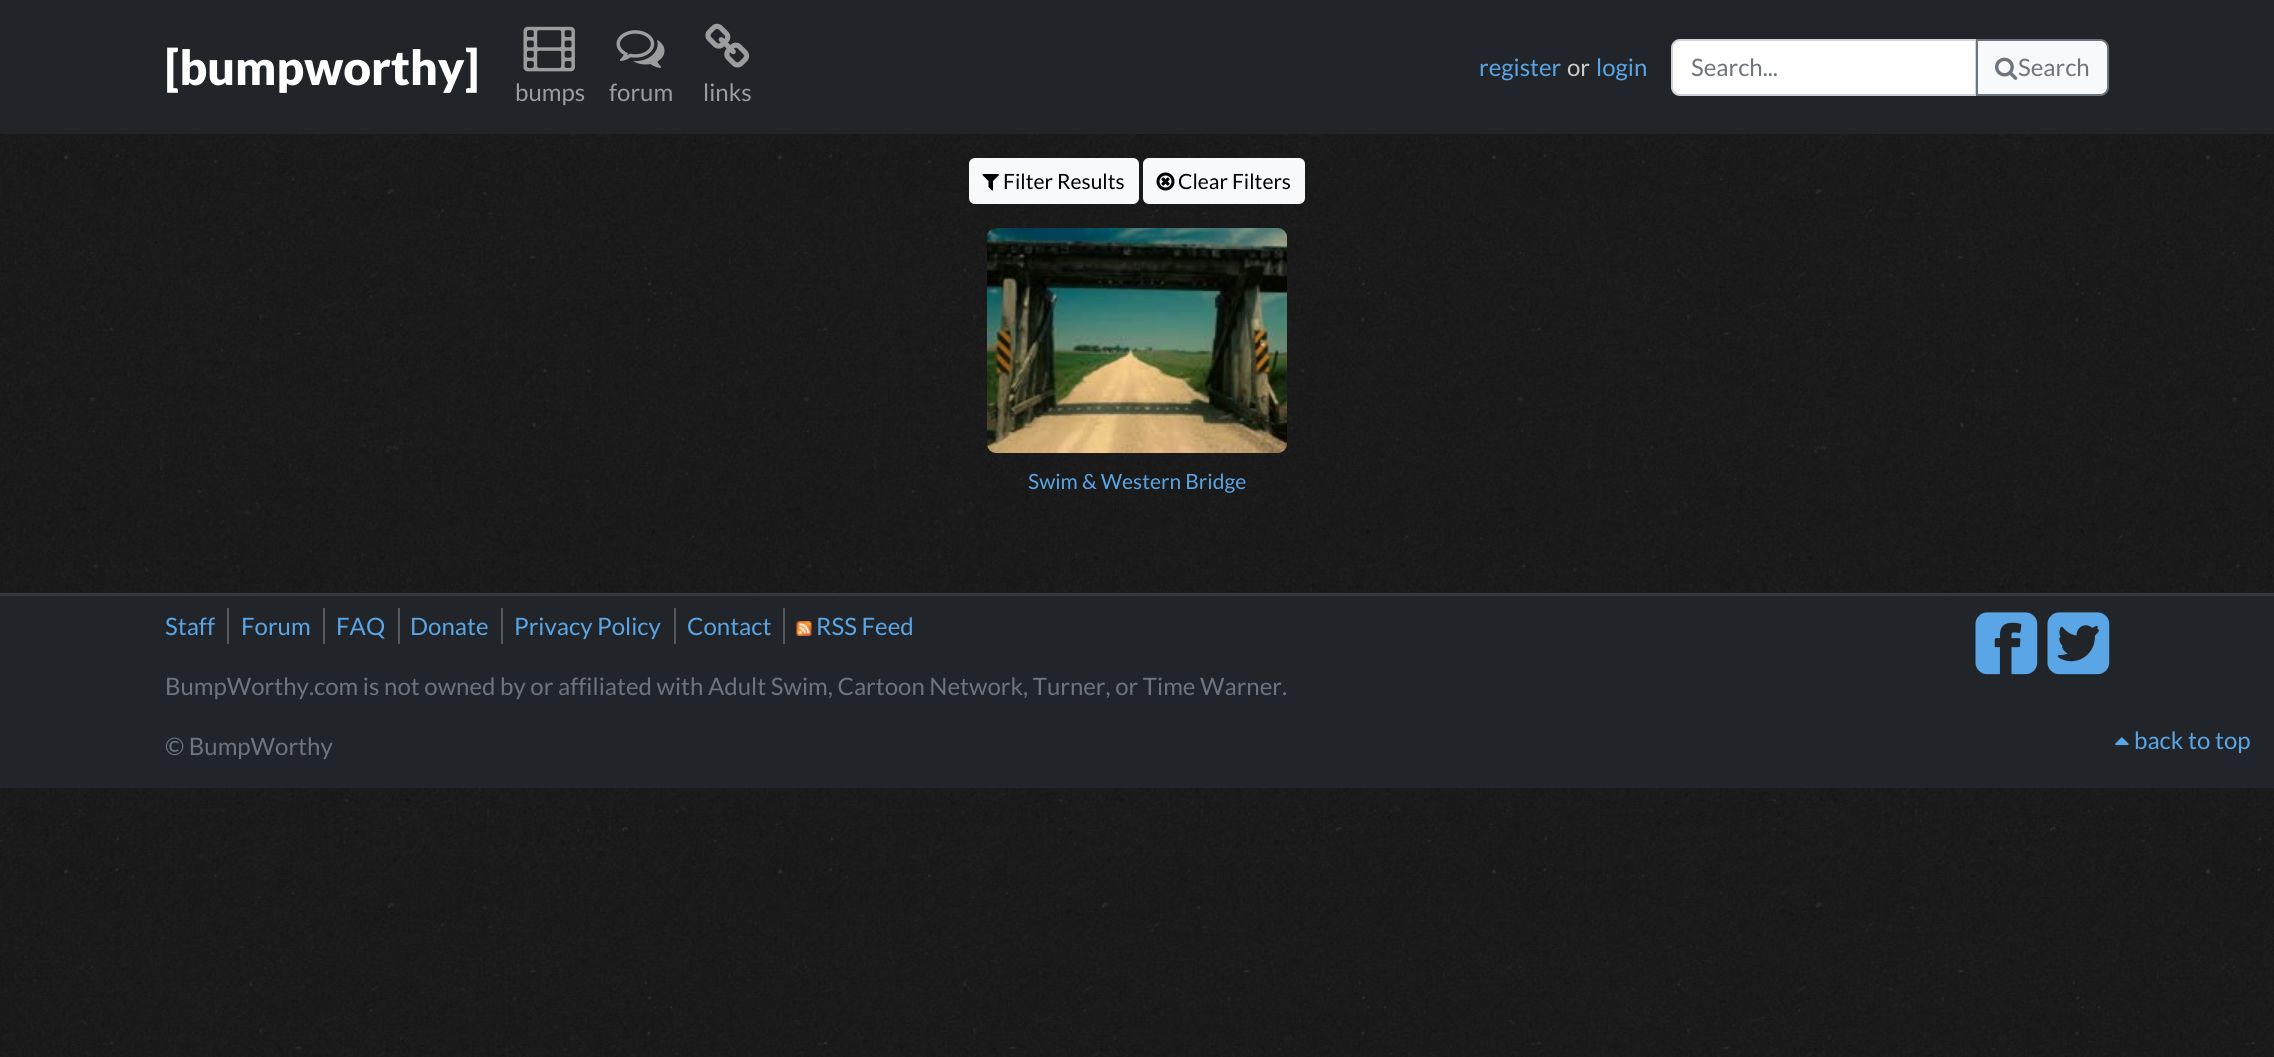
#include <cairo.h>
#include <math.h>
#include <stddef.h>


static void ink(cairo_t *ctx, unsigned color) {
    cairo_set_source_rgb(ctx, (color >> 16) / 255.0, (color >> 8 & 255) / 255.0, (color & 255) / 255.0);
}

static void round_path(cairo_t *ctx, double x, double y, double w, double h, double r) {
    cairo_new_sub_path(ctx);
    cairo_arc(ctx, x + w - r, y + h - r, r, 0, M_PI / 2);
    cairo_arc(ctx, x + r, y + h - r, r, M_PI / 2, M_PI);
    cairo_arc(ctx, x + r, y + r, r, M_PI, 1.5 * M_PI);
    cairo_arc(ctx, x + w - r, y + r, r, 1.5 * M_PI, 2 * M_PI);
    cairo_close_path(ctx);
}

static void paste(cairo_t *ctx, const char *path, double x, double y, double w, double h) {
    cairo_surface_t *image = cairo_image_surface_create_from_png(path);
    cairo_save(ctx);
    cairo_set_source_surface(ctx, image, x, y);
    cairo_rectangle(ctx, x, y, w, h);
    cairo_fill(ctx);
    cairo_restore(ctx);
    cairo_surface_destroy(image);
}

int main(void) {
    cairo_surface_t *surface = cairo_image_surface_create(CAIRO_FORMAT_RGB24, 2274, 1057);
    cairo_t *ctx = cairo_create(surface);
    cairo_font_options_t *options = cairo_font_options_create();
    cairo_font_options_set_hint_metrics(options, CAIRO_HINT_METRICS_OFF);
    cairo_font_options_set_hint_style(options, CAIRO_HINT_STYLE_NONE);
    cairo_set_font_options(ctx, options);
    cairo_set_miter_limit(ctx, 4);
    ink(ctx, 0xFFFFFF);
    cairo_paint(ctx);
    paste(ctx, "media/1.png", 0, 134, 2274, 923);
    ink(ctx, 0x212529);
    cairo_rectangle(ctx, 0, 0, 2274, 134);
    cairo_fill(ctx);
    cairo_select_font_face(ctx, "Lato Black", CAIRO_FONT_SLANT_NORMAL, CAIRO_FONT_WEIGHT_NORMAL);
    cairo_set_font_size(ctx, 48);
    ink(ctx, 0xFFFFFF);
    cairo_move_to(ctx, 165, 85);
    cairo_show_text(ctx, "[bumpworthy]");
    cairo_select_font_face(ctx, "Lato", CAIRO_FONT_SLANT_NORMAL, CAIRO_FONT_WEIGHT_NORMAL);
    cairo_set_font_size(ctx, 24);
    ink(ctx, 0x59A5E5);
    cairo_move_to(ctx, 1479, 76);
    cairo_show_text(ctx, "register");
    ink(ctx, 0xCCCCCC);
    cairo_move_to(ctx, 1567, 76);
    cairo_show_text(ctx, "or");
    ink(ctx, 0x59A5E5);
    cairo_move_to(ctx, 1596, 76);
    cairo_show_text(ctx, "login");
    ink(ctx, 0xFFFFFF);
    cairo_new_path(ctx);
    cairo_move_to(ctx, 1680, 40);
    cairo_line_to(ctx, 1976, 40);
    cairo_line_to(ctx, 1976, 95);
    cairo_line_to(ctx, 1680, 95);
    cairo_curve_to(ctx, 1675.5, 95, 1672, 91.5, 1672, 87);
    cairo_line_to(ctx, 1672, 48);
    cairo_curve_to(ctx, 1672, 43.5, 1675.5, 40, 1680, 40);
    cairo_close_path(ctx);
    cairo_fill_preserve(ctx);
    ink(ctx, 0xCED4DA);
    cairo_stroke(ctx);
    ink(ctx, 0x6C757D);
    cairo_move_to(ctx, 1691, 76);
    cairo_show_text(ctx, "Search...");
    ink(ctx, 0xF8F9FA);
    cairo_new_path(ctx);
    cairo_move_to(ctx, 1977, 40);
    cairo_line_to(ctx, 2100, 40);
    cairo_curve_to(ctx, 2104.5, 40, 2108, 43.5, 2108, 48);
    cairo_line_to(ctx, 2108, 87);
    cairo_curve_to(ctx, 2108, 91.5, 2104.5, 95, 2100, 95);
    cairo_line_to(ctx, 1977, 95);
    cairo_close_path(ctx);
    cairo_fill_preserve(ctx);
    ink(ctx, 0x6C757D);
    cairo_stroke(ctx);
    paste(ctx, "media/2.png", 1995, 57, 23, 23);
    cairo_move_to(ctx, 2018, 76);
    cairo_show_text(ctx, "Search");
    paste(ctx, "media/3.png", 523, 26, 52, 46);
    ink(ctx, 0x9B9D9F);
    cairo_move_to(ctx, 515, 101);
    cairo_show_text(ctx, "bumps");
    paste(ctx, "media/4.png", 616, 30, 49, 38);
    cairo_move_to(ctx, 609, 101);
    cairo_show_text(ctx, "forum");
    paste(ctx, "media/5.png", 705, 23, 45, 45);
    cairo_move_to(ctx, 703, 101);
    cairo_show_text(ctx, "links");
    ink(ctx, 0xF8F9FA);
    round_path(ctx, 970, 159, 168, 44, 5);
    cairo_fill_preserve(ctx);
    cairo_stroke(ctx);
    paste(ctx, "media/6.png", 982, 174, 17, 17);
    cairo_set_font_size(ctx, 21);
    ink(ctx, 0x000000);
    cairo_move_to(ctx, 1003, 189);
    cairo_show_text(ctx, "Filter Results");
    ink(ctx, 0xF8F9FA);
    round_path(ctx, 1144, 159, 160, 44, 5);
    cairo_fill_preserve(ctx);
    cairo_stroke(ctx);
    paste(ctx, "media/7.png", 1156, 172, 19, 19);
    ink(ctx, 0x000000);
    cairo_move_to(ctx, 1178, 189);
    cairo_show_text(ctx, "Clear Filters");
    paste(ctx, "media/8.png", 987, 228, 300, 225);
    ink(ctx, 0x59A5E5);
    cairo_move_to(ctx, 1028, 489);
    cairo_show_text(ctx, "Swim & Western Bridge");
    ink(ctx, 0x212529);
    cairo_rectangle(ctx, 0, 596, 2274, 192);
    cairo_fill(ctx);
    ink(ctx, 0x34393E);
    cairo_rectangle(ctx, 0, 593, 2274, 3);
    cairo_fill(ctx);
    cairo_set_font_size(ctx, 24);
    ink(ctx, 0x59A5E5);
    cairo_move_to(ctx, 165, 635);
    cairo_show_text(ctx, "Staff");
    ink(ctx, 0x575A5D);
    cairo_rectangle(ctx, 227, 608, 2, 36);
    cairo_fill(ctx);
    ink(ctx, 0x59A5E5);
    cairo_move_to(ctx, 241, 635);
    cairo_show_text(ctx, "Forum");
    ink(ctx, 0x575A5D);
    cairo_rectangle(ctx, 323, 608, 2, 36);
    cairo_fill(ctx);
    ink(ctx, 0x59A5E5);
    cairo_move_to(ctx, 336, 635);
    cairo_show_text(ctx, "FAQ");
    ink(ctx, 0x575A5D);
    cairo_rectangle(ctx, 398, 608, 2, 36);
    cairo_fill(ctx);
    ink(ctx, 0x59A5E5);
    cairo_move_to(ctx, 410, 635);
    cairo_show_text(ctx, "Donate");
    ink(ctx, 0x575A5D);
    cairo_rectangle(ctx, 501, 608, 2, 36);
    cairo_fill(ctx);
    ink(ctx, 0x59A5E5);
    cairo_move_to(ctx, 514, 635);
    cairo_show_text(ctx, "Privacy Policy");
    ink(ctx, 0x575A5D);
    cairo_rectangle(ctx, 674, 608, 2, 36);
    cairo_fill(ctx);
    ink(ctx, 0x59A5E5);
    cairo_move_to(ctx, 687, 635);
    cairo_show_text(ctx, "Contact");
    ink(ctx, 0x575A5D);
    cairo_rectangle(ctx, 783, 608, 2, 36);
    cairo_fill(ctx);
    paste(ctx, "media/9.png", 796, 621, 16, 15);
    ink(ctx, 0x59A5E5);
    cairo_move_to(ctx, 816, 635);
    cairo_show_text(ctx, "RSS Feed");
    ink(ctx, 0x6C757D);
    cairo_move_to(ctx, 165, 695);
    cairo_show_text(ctx, "BumpWorthy.com is not owned by or affiliated with Adult Swim, Cartoon Network, Turner, or Time Warner.");
    cairo_move_to(ctx, 165, 755);
    cairo_show_text(ctx, "© BumpWorthy");
    paste(ctx, "media/10.png", 1975, 612, 63, 63);
    paste(ctx, "media/11.png", 2047, 612, 63, 63);
    paste(ctx, "media/12.png", 2115, 737, 14, 9);
    ink(ctx, 0x59A5E5);
    cairo_move_to(ctx, 2134, 749);
    cairo_show_text(ctx, "back to top");
    cairo_surface_write_to_png(surface, "image.png");
    cairo_font_options_destroy(options);
    cairo_destroy(ctx);
    cairo_surface_destroy(surface);
    return 0;
}
